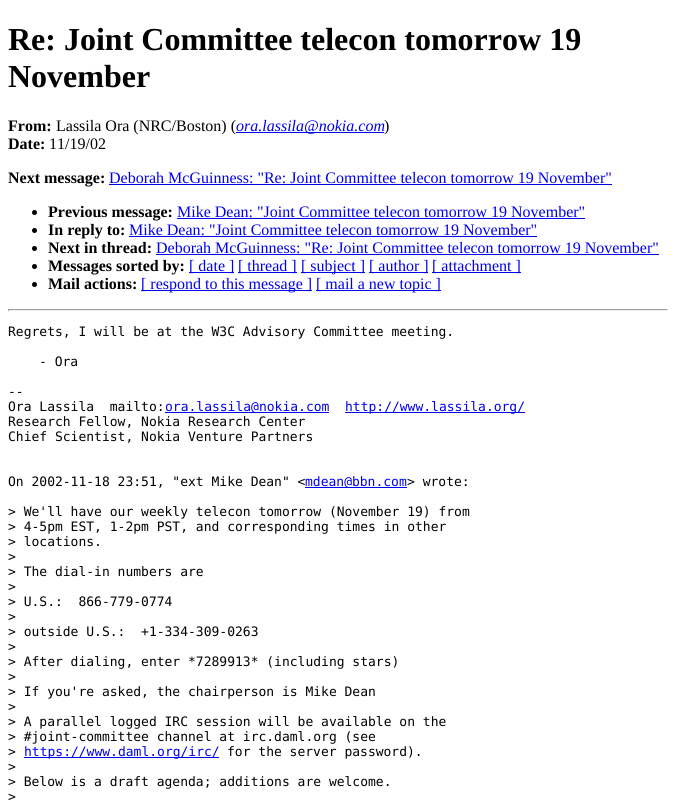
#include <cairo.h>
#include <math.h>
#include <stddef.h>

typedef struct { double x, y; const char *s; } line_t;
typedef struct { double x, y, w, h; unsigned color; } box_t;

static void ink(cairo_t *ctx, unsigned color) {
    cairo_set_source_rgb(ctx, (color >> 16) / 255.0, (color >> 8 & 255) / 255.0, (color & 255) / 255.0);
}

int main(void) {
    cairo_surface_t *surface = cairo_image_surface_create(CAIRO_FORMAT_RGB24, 676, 800);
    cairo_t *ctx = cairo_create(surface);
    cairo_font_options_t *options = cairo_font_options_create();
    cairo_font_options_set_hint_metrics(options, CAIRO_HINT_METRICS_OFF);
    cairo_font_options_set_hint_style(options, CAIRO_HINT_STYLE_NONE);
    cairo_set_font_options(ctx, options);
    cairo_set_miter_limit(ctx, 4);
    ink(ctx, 0xFFFFFF);
    cairo_paint(ctx);
    cairo_select_font_face(ctx, "Liberation Serif", CAIRO_FONT_SLANT_NORMAL, CAIRO_FONT_WEIGHT_BOLD);
    cairo_set_font_size(ctx, 32);
    ink(ctx, 0x000000);
    cairo_move_to(ctx, 8, 50);
    cairo_show_text(ctx, "Re: Joint Committee telecon tomorrow 19");
    cairo_move_to(ctx, 8, 87);
    cairo_show_text(ctx, "November");
    cairo_set_font_size(ctx, 16);
    cairo_move_to(ctx, 8, 131);
    cairo_show_text(ctx, "From:");
    cairo_select_font_face(ctx, "Liberation Serif", CAIRO_FONT_SLANT_NORMAL, CAIRO_FONT_WEIGHT_NORMAL);
    cairo_move_to(ctx, 56, 131);
    cairo_show_text(ctx, "Lassila Ora (NRC/Boston) (");
    ink(ctx, 0x0000EE);
    cairo_rectangle(ctx, 236, 132, 148, 1);
    cairo_fill(ctx);
    cairo_select_font_face(ctx, "Liberation Serif", CAIRO_FONT_SLANT_ITALIC, CAIRO_FONT_WEIGHT_NORMAL);
    cairo_move_to(ctx, 236, 131);
    cairo_show_text(ctx, "ora.lassila@nokia.com");
    cairo_select_font_face(ctx, "Liberation Serif", CAIRO_FONT_SLANT_NORMAL, CAIRO_FONT_WEIGHT_NORMAL);
    ink(ctx, 0x000000);
    cairo_move_to(ctx, 384, 131);
    cairo_show_text(ctx, ")");
    cairo_select_font_face(ctx, "Liberation Serif", CAIRO_FONT_SLANT_NORMAL, CAIRO_FONT_WEIGHT_BOLD);
    cairo_move_to(ctx, 8, 149);
    cairo_show_text(ctx, "Date:");
    cairo_select_font_face(ctx, "Liberation Serif", CAIRO_FONT_SLANT_NORMAL, CAIRO_FONT_WEIGHT_NORMAL);
    cairo_move_to(ctx, 49, 149);
    cairo_show_text(ctx, "11/19/02");
    cairo_select_font_face(ctx, "Liberation Serif", CAIRO_FONT_SLANT_NORMAL, CAIRO_FONT_WEIGHT_BOLD);
    cairo_move_to(ctx, 8, 183);
    cairo_show_text(ctx, "Next message:");
    cairo_select_font_face(ctx, "Liberation Serif", CAIRO_FONT_SLANT_NORMAL, CAIRO_FONT_WEIGHT_NORMAL);
    ink(ctx, 0x0000EE);
    cairo_move_to(ctx, 109, 183);
    cairo_show_text(ctx, "Deborah McGuinness: \"Re: Joint Committee telecon tomorrow 19 November\"");
    cairo_rectangle(ctx, 109, 184, 503, 1);
    cairo_fill(ctx);
    ink(ctx, 0x000000);
    cairo_arc(ctx, 34.5, 212.5, 2.5, 0, 2 * M_PI);
    cairo_fill(ctx);
    cairo_select_font_face(ctx, "Liberation Serif", CAIRO_FONT_SLANT_NORMAL, CAIRO_FONT_WEIGHT_BOLD);
    cairo_move_to(ctx, 48, 217);
    cairo_show_text(ctx, "Previous message:");
    cairo_select_font_face(ctx, "Liberation Serif", CAIRO_FONT_SLANT_NORMAL, CAIRO_FONT_WEIGHT_NORMAL);
    ink(ctx, 0x0000EE);
    cairo_move_to(ctx, 177, 217);
    cairo_show_text(ctx, "Mike Dean: \"Joint Committee telecon tomorrow 19 November\"");
    cairo_rectangle(ctx, 177, 218, 408, 1);
    cairo_fill(ctx);
    ink(ctx, 0x000000);
    cairo_arc(ctx, 34.5, 230.5, 2.5, 0, 2 * M_PI);
    cairo_fill(ctx);
    cairo_select_font_face(ctx, "Liberation Serif", CAIRO_FONT_SLANT_NORMAL, CAIRO_FONT_WEIGHT_BOLD);
    cairo_move_to(ctx, 48, 235);
    cairo_show_text(ctx, "In reply to:");
    cairo_select_font_face(ctx, "Liberation Serif", CAIRO_FONT_SLANT_NORMAL, CAIRO_FONT_WEIGHT_NORMAL);
    ink(ctx, 0x0000EE);
    cairo_move_to(ctx, 129, 235);
    cairo_show_text(ctx, "Mike Dean: \"Joint Committee telecon tomorrow 19 November\"");
    cairo_rectangle(ctx, 129, 236, 408, 1);
    cairo_fill(ctx);
    ink(ctx, 0x000000);
    cairo_arc(ctx, 34.5, 248.5, 2.5, 0, 2 * M_PI);
    cairo_fill(ctx);
    cairo_select_font_face(ctx, "Liberation Serif", CAIRO_FONT_SLANT_NORMAL, CAIRO_FONT_WEIGHT_BOLD);
    cairo_move_to(ctx, 48, 253);
    cairo_show_text(ctx, "Next in thread:");
    cairo_select_font_face(ctx, "Liberation Serif", CAIRO_FONT_SLANT_NORMAL, CAIRO_FONT_WEIGHT_NORMAL);
    ink(ctx, 0x0000EE);
    cairo_move_to(ctx, 156, 253);
    cairo_show_text(ctx, "Deborah McGuinness: \"Re: Joint Committee telecon tomorrow 19 November\"");
    cairo_rectangle(ctx, 156, 254, 503, 1);
    cairo_fill(ctx);
    ink(ctx, 0x000000);
    cairo_arc(ctx, 34.5, 266.5, 2.5, 0, 2 * M_PI);
    cairo_fill(ctx);
    cairo_select_font_face(ctx, "Liberation Serif", CAIRO_FONT_SLANT_NORMAL, CAIRO_FONT_WEIGHT_BOLD);
    cairo_move_to(ctx, 48, 271);
    cairo_show_text(ctx, "Messages sorted by:");
    ink(ctx, 0x0000EE);
    cairo_rectangle(ctx, 189, 272, 45, 1);
    cairo_fill(ctx);
    cairo_select_font_face(ctx, "Liberation Serif", CAIRO_FONT_SLANT_NORMAL, CAIRO_FONT_WEIGHT_NORMAL);
    cairo_move_to(ctx, 189, 271);
    cairo_show_text(ctx, "[ date ]");
    cairo_rectangle(ctx, 238, 272, 59, 1);
    cairo_fill(ctx);
    cairo_move_to(ctx, 238, 271);
    cairo_show_text(ctx, "[ thread ]");
    cairo_rectangle(ctx, 301, 272, 64, 1);
    cairo_fill(ctx);
    cairo_move_to(ctx, 301, 271);
    cairo_show_text(ctx, "[ subject ]");
    cairo_rectangle(ctx, 369, 272, 59, 1);
    cairo_fill(ctx);
    cairo_move_to(ctx, 369, 271);
    cairo_show_text(ctx, "[ author ]");
    cairo_rectangle(ctx, 432, 272, 89, 1);
    cairo_fill(ctx);
    cairo_move_to(ctx, 432, 271);
    cairo_show_text(ctx, "[ attachment ]");
    ink(ctx, 0x000000);
    cairo_new_path(ctx);
    cairo_arc(ctx, 34.5, 284.5, 2.5, 0, 2 * M_PI);
    cairo_fill(ctx);
    cairo_select_font_face(ctx, "Liberation Serif", CAIRO_FONT_SLANT_NORMAL, CAIRO_FONT_WEIGHT_BOLD);
    cairo_move_to(ctx, 48, 289);
    cairo_show_text(ctx, "Mail actions:");
    ink(ctx, 0x0000EE);
    cairo_rectangle(ctx, 141, 290, 171, 1);
    cairo_fill(ctx);
    cairo_select_font_face(ctx, "Liberation Serif", CAIRO_FONT_SLANT_NORMAL, CAIRO_FONT_WEIGHT_NORMAL);
    cairo_move_to(ctx, 141, 289);
    cairo_show_text(ctx, "[ respond to this message ]");
    cairo_rectangle(ctx, 316, 290, 125, 1);
    cairo_fill(ctx);
    cairo_move_to(ctx, 316, 289);
    cairo_show_text(ctx, "[ mail a new topic ]");
    {
        static const box_t items[] = {
            {8, 309, 660, 1, 0x9F9F9F},
            {667, 309, 1, 2, 0xEEEEEE},
            {8, 310, 660, 1, 0xEEEEEE},
            {8, 309, 1, 2, 0x9F9F9F},
        };
        for (size_t i = 0; i < sizeof items / sizeof *items; i++) {
            ink(ctx, items[i].color);
            cairo_rectangle(ctx, items[i].x, items[i].y, items[i].w, items[i].h);
            cairo_fill(ctx);
        }
    }
    cairo_select_font_face(ctx, "DejaVu Sans Mono", CAIRO_FONT_SLANT_NORMAL, CAIRO_FONT_WEIGHT_NORMAL);
    cairo_set_font_size(ctx, 13);
    ink(ctx, 0x000000);
    {
        static const line_t items[] = {
            {8, 336, "Regrets, I will be at the W3C Advisory Committee meeting."},
            {39, 366, "- Ora"},
            {8, 396, "--"},
            {8, 411, "Ora Lassila  mailto:"},
        };
        for (size_t i = 0; i < sizeof items / sizeof *items; i++) {
            cairo_move_to(ctx, items[i].x, items[i].y);
            cairo_show_text(ctx, items[i].s);
        }
    }
    ink(ctx, 0x0000EE);
    cairo_rectangle(ctx, 165, 412, 164, 1);
    cairo_fill(ctx);
    cairo_move_to(ctx, 165, 411);
    cairo_show_text(ctx, "ora.lassila@nokia.com");
    cairo_rectangle(ctx, 345, 412, 180, 1);
    cairo_fill(ctx);
    cairo_move_to(ctx, 345, 411);
    cairo_show_text(ctx, "http://www.lassila.org/");
    ink(ctx, 0x000000);
    {
        static const line_t items[] = {
            {8, 426, "Research Fellow, Nokia Research Center"},
            {8, 441, "Chief Scientist, Nokia Venture Partners"},
            {8, 486, "On 2002-11-18 23:51, \"ext Mike Dean\" <"},
        };
        for (size_t i = 0; i < sizeof items / sizeof *items; i++) {
            cairo_move_to(ctx, items[i].x, items[i].y);
            cairo_show_text(ctx, items[i].s);
        }
    }
    ink(ctx, 0x0000EE);
    cairo_rectangle(ctx, 305, 487, 102, 1);
    cairo_fill(ctx);
    cairo_move_to(ctx, 305, 486);
    cairo_show_text(ctx, "mdean@bbn.com");
    ink(ctx, 0x000000);
    {
        static const line_t items[] = {
            {407, 486, "> wrote:"},
            {8, 516, "> We'll have our weekly telecon tomorrow (November 19) from"},
            {8, 531, "> 4-5pm EST, 1-2pm PST, and corresponding times in other"},
            {8, 546, "> locations."},
            {8, 561, ">"},
            {8, 576, "> The dial-in numbers are"},
            {8, 591, ">"},
            {8, 606, "> U.S.:  866-779-0774"},
            {8, 621, ">"},
            {8, 636, "> outside U.S.:  +1-334-309-0263"},
            {8, 651, ">"},
            {8, 666, "> After dialing, enter *7289913* (including stars)"},
            {8, 681, ">"},
            {8, 696, "> If you're asked, the chairperson is Mike Dean"},
            {8, 711, ">"},
            {8, 726, "> A parallel logged IRC session will be available on the"},
            {8, 741, "> #joint-committee channel at irc.daml.org (see"},
            {8, 756, ">"},
        };
        for (size_t i = 0; i < sizeof items / sizeof *items; i++) {
            cairo_move_to(ctx, items[i].x, items[i].y);
            cairo_show_text(ctx, items[i].s);
        }
    }
    ink(ctx, 0x0000EE);
    cairo_rectangle(ctx, 24, 757, 195, 1);
    cairo_fill(ctx);
    cairo_move_to(ctx, 24, 756);
    cairo_show_text(ctx, "https://www.daml.org/irc/");
    ink(ctx, 0x000000);
    {
        static const line_t items[] = {
            {227, 756, "for the server password)."},
            {8, 771, ">"},
            {8, 786, "> Below is a draft agenda; additions are welcome."},
            {8, 801, ">"},
        };
        for (size_t i = 0; i < sizeof items / sizeof *items; i++) {
            cairo_move_to(ctx, items[i].x, items[i].y);
            cairo_show_text(ctx, items[i].s);
        }
    }
    cairo_surface_write_to_png(surface, "image.png");
    cairo_font_options_destroy(options);
    cairo_destroy(ctx);
    cairo_surface_destroy(surface);
    return 0;
}
